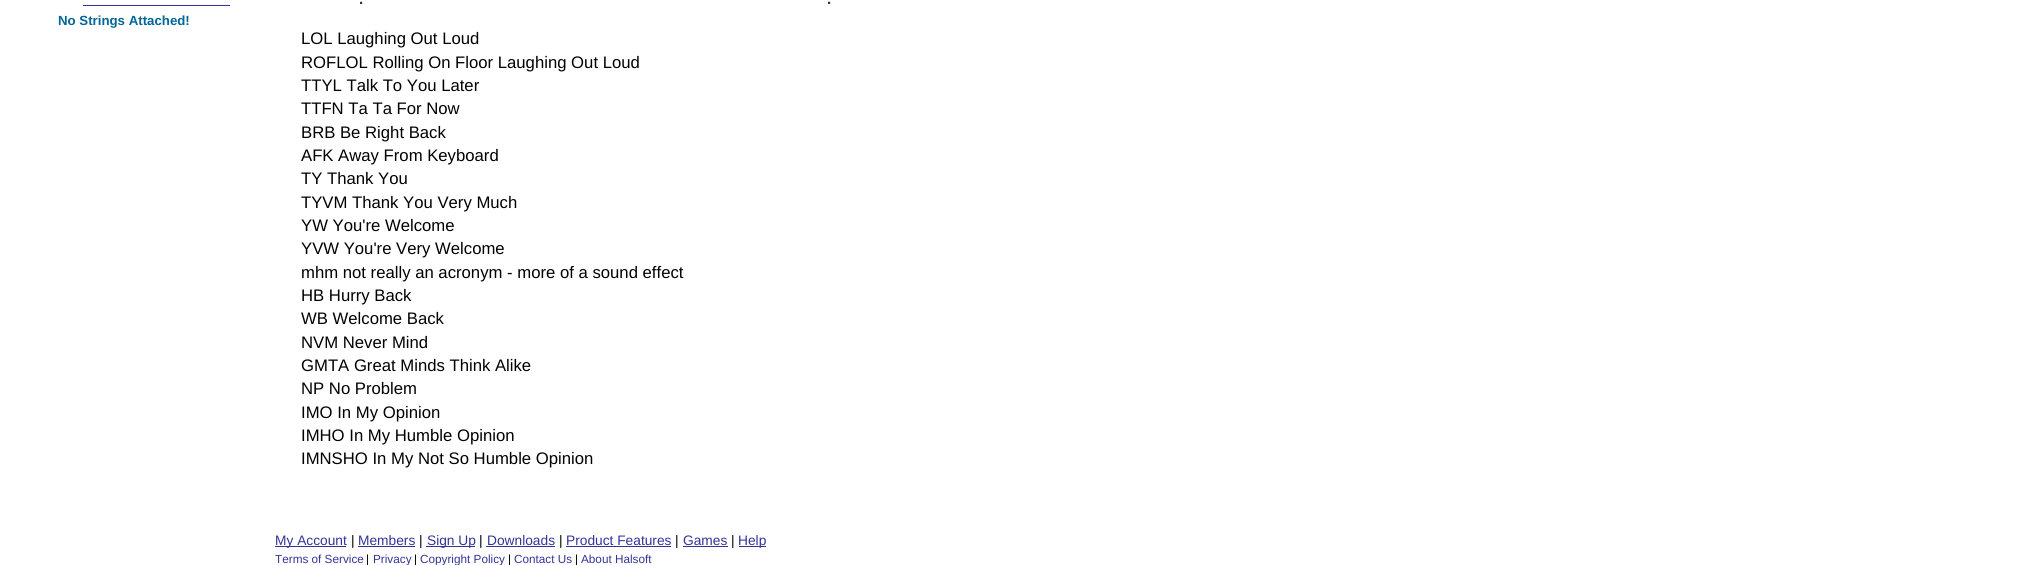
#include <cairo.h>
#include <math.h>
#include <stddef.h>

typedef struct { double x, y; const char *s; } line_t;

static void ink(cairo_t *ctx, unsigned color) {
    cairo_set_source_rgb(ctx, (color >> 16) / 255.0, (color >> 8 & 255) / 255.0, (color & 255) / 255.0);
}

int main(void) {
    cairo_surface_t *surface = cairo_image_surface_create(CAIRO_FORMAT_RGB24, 2033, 565);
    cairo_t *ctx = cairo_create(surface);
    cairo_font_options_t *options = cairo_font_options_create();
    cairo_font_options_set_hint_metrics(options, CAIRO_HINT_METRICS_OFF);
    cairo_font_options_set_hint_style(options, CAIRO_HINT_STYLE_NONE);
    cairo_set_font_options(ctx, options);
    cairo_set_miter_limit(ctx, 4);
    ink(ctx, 0xFFFFFF);
    cairo_paint(ctx);
    cairo_select_font_face(ctx, "Liberation Sans", CAIRO_FONT_SLANT_NORMAL, CAIRO_FONT_WEIGHT_BOLD);
    cairo_set_font_size(ctx, 13.25);
    ink(ctx, 0x006699);
    cairo_move_to(ctx, 58, 25);
    cairo_show_text(ctx, "No Strings Attached!");
    ink(ctx, 0x333399);
    cairo_rectangle(ctx, 83, 5, 147, 1);
    cairo_fill(ctx);
    cairo_set_font_size(ctx, 15);
    ink(ctx, 0x333333);
    cairo_move_to(ctx, 359, 4);
    cairo_show_text(ctx, ".");
    cairo_move_to(ctx, 827, 4);
    cairo_show_text(ctx, ".");
    cairo_select_font_face(ctx, "Liberation Sans", CAIRO_FONT_SLANT_NORMAL, CAIRO_FONT_WEIGHT_NORMAL);
    cairo_set_font_size(ctx, 16.7);
    ink(ctx, 0x000000);
    {
        static const line_t items[] = {
            {301, 44, "LOL Laughing Out Loud"},
            {301, 68, "ROFLOL Rolling On Floor Laughing Out Loud"},
            {301, 91, "TTYL Talk To You Later"},
            {301, 114, "TTFN Ta Ta For Now"},
            {301, 138, "BRB Be Right Back"},
            {301, 161, "AFK Away From Keyboard"},
            {301, 184, "TY Thank You"},
            {301, 208, "TYVM Thank You Very Much"},
            {301, 231, "YW You're Welcome"},
            {301, 254, "YVW You're Very Welcome"},
            {301, 278, "mhm not really an acronym - more of a sound effect"},
            {301, 301, "HB Hurry Back"},
            {301, 324, "WB Welcome Back"},
            {301, 348, "NVM Never Mind"},
            {301, 371, "GMTA Great Minds Think Alike"},
            {301, 394, "NP No Problem"},
            {301, 418, "IMO In My Opinion"},
            {301, 441, "IMHO In My Humble Opinion"},
            {301, 464, "IMNSHO In My Not So Humble Opinion"},
        };
        for (size_t i = 0; i < sizeof items / sizeof *items; i++) {
            cairo_move_to(ctx, items[i].x, items[i].y);
            cairo_show_text(ctx, items[i].s);
        }
    }
    ink(ctx, 0x333399);
    cairo_rectangle(ctx, 275, 546, 71, 1);
    cairo_fill(ctx);
    cairo_set_font_size(ctx, 13.75);
    cairo_move_to(ctx, 275, 545);
    cairo_show_text(ctx, "My Account");
    ink(ctx, 0x000000);
    cairo_move_to(ctx, 351, 545);
    cairo_show_text(ctx, "|");
    ink(ctx, 0x333399);
    cairo_move_to(ctx, 358, 545);
    cairo_show_text(ctx, "Members");
    cairo_rectangle(ctx, 358, 546, 57, 1);
    cairo_fill(ctx);
    ink(ctx, 0x000000);
    cairo_move_to(ctx, 419, 545);
    cairo_show_text(ctx, "|");
    ink(ctx, 0x333399);
    cairo_rectangle(ctx, 426, 546, 49, 1);
    cairo_fill(ctx);
    cairo_move_to(ctx, 427, 545);
    cairo_show_text(ctx, "Sign Up");
    ink(ctx, 0x000000);
    cairo_move_to(ctx, 479, 545);
    cairo_show_text(ctx, "|");
    ink(ctx, 0x333399);
    cairo_move_to(ctx, 487, 545);
    cairo_show_text(ctx, "Downloads");
    cairo_rectangle(ctx, 486, 546, 69, 1);
    cairo_fill(ctx);
    ink(ctx, 0x000000);
    cairo_move_to(ctx, 559, 545);
    cairo_show_text(ctx, "|");
    ink(ctx, 0x333399);
    cairo_move_to(ctx, 566, 545);
    cairo_show_text(ctx, "Product Features");
    cairo_rectangle(ctx, 566, 546, 105, 1);
    cairo_fill(ctx);
    ink(ctx, 0x000000);
    cairo_move_to(ctx, 675, 545);
    cairo_show_text(ctx, "|");
    ink(ctx, 0x333399);
    cairo_move_to(ctx, 683, 545);
    cairo_show_text(ctx, "Games");
    cairo_rectangle(ctx, 683, 546, 45, 1);
    cairo_fill(ctx);
    ink(ctx, 0x000000);
    cairo_move_to(ctx, 731, 545);
    cairo_show_text(ctx, "|");
    ink(ctx, 0x333399);
    cairo_rectangle(ctx, 739, 546, 27, 1);
    cairo_fill(ctx);
    cairo_move_to(ctx, 738, 545);
    cairo_show_text(ctx, "Help");
    cairo_set_font_size(ctx, 11.75);
    cairo_move_to(ctx, 275, 563);
    cairo_show_text(ctx, "Terms of Service");
    ink(ctx, 0x000000);
    cairo_move_to(ctx, 366, 563);
    cairo_show_text(ctx, "|");
    ink(ctx, 0x333399);
    cairo_move_to(ctx, 373, 563);
    cairo_show_text(ctx, "Privacy");
    ink(ctx, 0x000000);
    cairo_move_to(ctx, 414, 563);
    cairo_show_text(ctx, "|");
    ink(ctx, 0x333399);
    cairo_move_to(ctx, 420, 563);
    cairo_show_text(ctx, "Copyright Policy");
    ink(ctx, 0x000000);
    cairo_move_to(ctx, 508, 563);
    cairo_show_text(ctx, "|");
    ink(ctx, 0x333399);
    cairo_move_to(ctx, 514, 563);
    cairo_show_text(ctx, "Contact Us");
    ink(ctx, 0x000000);
    cairo_move_to(ctx, 575, 563);
    cairo_show_text(ctx, "|");
    ink(ctx, 0x333399);
    cairo_move_to(ctx, 581, 563);
    cairo_show_text(ctx, "About Halsoft");
    cairo_surface_write_to_png(surface, "image.png");
    cairo_font_options_destroy(options);
    cairo_destroy(ctx);
    cairo_surface_destroy(surface);
    return 0;
}
